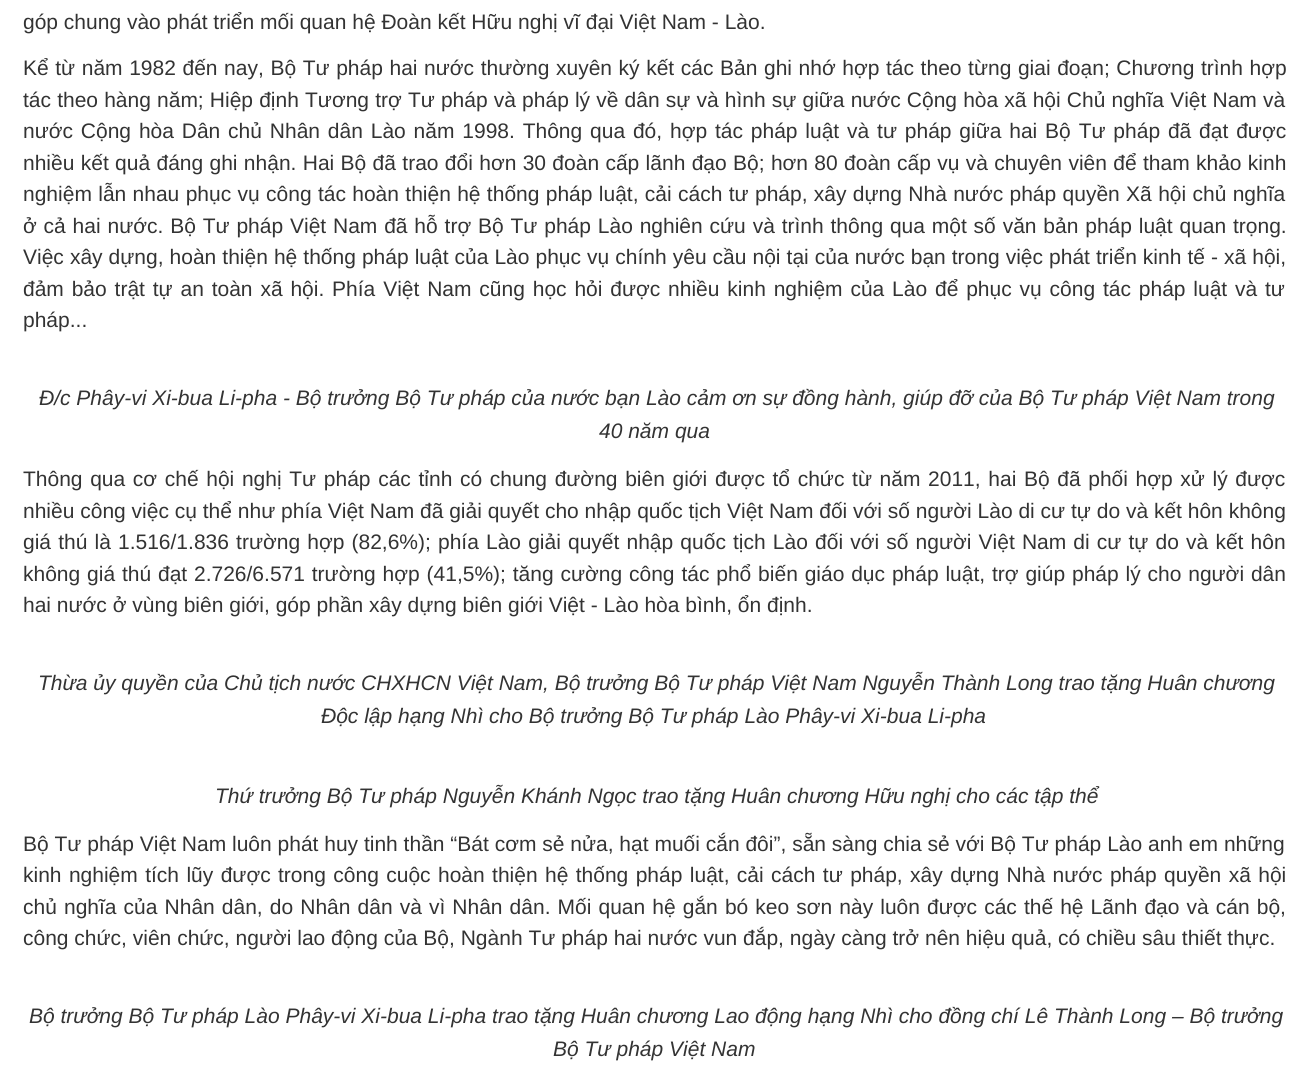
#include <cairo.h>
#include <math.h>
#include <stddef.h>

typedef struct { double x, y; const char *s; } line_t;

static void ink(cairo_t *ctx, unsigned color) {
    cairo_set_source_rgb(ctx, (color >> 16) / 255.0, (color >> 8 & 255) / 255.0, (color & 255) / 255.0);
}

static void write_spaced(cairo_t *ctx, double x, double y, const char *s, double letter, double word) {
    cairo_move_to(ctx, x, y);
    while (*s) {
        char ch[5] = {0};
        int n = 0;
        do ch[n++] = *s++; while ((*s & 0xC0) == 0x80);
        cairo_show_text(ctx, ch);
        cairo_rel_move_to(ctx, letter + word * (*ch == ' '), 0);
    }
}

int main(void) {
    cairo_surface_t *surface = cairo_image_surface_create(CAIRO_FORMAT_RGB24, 1307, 1066);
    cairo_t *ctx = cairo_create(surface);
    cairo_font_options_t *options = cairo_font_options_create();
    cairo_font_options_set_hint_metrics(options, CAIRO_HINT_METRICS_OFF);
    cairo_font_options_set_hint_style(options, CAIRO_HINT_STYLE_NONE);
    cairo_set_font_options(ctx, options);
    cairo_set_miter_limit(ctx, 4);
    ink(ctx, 0xFFFFFF);
    cairo_paint(ctx);
    cairo_select_font_face(ctx, "Liberation Sans", CAIRO_FONT_SLANT_NORMAL, CAIRO_FONT_WEIGHT_NORMAL);
    cairo_set_font_size(ctx, 21);
    ink(ctx, 0x333333);
    cairo_move_to(ctx, 23, 29);
    cairo_show_text(ctx, "góp chung vào phát triển mối quan hệ Đoàn kết Hữu nghị vĩ đại Việt Nam - Lào.");
    write_spaced(ctx, 23, 75, "Kể từ năm 1982 đến nay, Bộ Tư pháp hai nước thường xuyên ký kết các Bản ghi nhớ hợp tác theo từng giai đoạn; Chương trình hợp", 0, 0.75);
    write_spaced(ctx, 23, 107, "tác theo hàng năm; Hiệp định Tương trợ Tư pháp và pháp lý về dân sự và hình sự giữa nước Cộng hòa xã hội Chủ nghĩa Việt Nam và", 0, 0.3);
    write_spaced(ctx, 23, 138, "nước Cộng hòa Dân chủ Nhân dân Lào năm 1998. Thông qua đó, hợp tác pháp luật và tư pháp giữa hai Bộ Tư pháp đã đạt được", 0, 2);
    write_spaced(ctx, 23, 170, "nhiều kết quả đáng ghi nhận. Hai Bộ đã trao đổi hơn 30 đoàn cấp lãnh đạo Bộ; hơn 80 đoàn cấp vụ và chuyên viên để tham khảo kinh", 0, 0.5);
    write_spaced(ctx, 23, 201, "nghiệm lẫn nhau phục vụ công tác hoàn thiện hệ thống pháp luật, cải cách tư pháp, xây dựng Nhà nước pháp quyền Xã hội chủ nghĩa", 0, 0.5);
    write_spaced(ctx, 23, 233, "ở cả hai nước. Bộ Tư pháp Việt Nam đã hỗ trợ Bộ Tư pháp Lào nghiên cứu và trình thông qua một số văn bản pháp luật quan trọng.", 0, 1);
    write_spaced(ctx, 23, 264, "Việc xây dựng, hoàn thiện hệ thống pháp luật của Lào phục vụ chính yêu cầu nội tại của nước bạn trong việc phát triển kinh tế - xã hội,", 0, 0.2);
    write_spaced(ctx, 23, 296, "đảm bảo trật tự an toàn xã hội. Phía Việt Nam cũng học hỏi được nhiều kinh nghiệm của Lào để phục vụ công tác pháp luật và tư", 0, 2);
    cairo_move_to(ctx, 23, 327);
    cairo_show_text(ctx, "pháp...");
    cairo_select_font_face(ctx, "Liberation Sans", CAIRO_FONT_SLANT_ITALIC, CAIRO_FONT_WEIGHT_NORMAL);
    cairo_move_to(ctx, 39, 405);
    cairo_show_text(ctx, "Đ/c Phây-vi Xi-bua Li-pha - Bộ trưởng Bộ Tư pháp của nước bạn Lào cảm ơn sự đồng hành, giúp đỡ của Bộ Tư pháp Việt Nam trong");
    cairo_move_to(ctx, 599, 438);
    cairo_show_text(ctx, "40 năm qua");
    cairo_select_font_face(ctx, "Liberation Sans", CAIRO_FONT_SLANT_NORMAL, CAIRO_FONT_WEIGHT_NORMAL);
    write_spaced(ctx, 23, 486, "Thông qua cơ chế hội nghị Tư pháp các tỉnh có chung đường biên giới được tổ chức từ năm 2011, hai Bộ đã phối hợp xử lý được", 0, 1.8);
    cairo_move_to(ctx, 23, 518);
    cairo_show_text(ctx, "nhiều công việc cụ thể như phía Việt Nam đã giải quyết cho nhập quốc tịch Việt Nam đối với số người Lào di cư tự do và kết hôn không");
    write_spaced(ctx, 23, 549, "giá thú là 1.516/1.836 trường hợp (82,6%); phía Lào giải quyết nhập quốc tịch Lào đối với số người Việt Nam di cư tự do và kết hôn", 0, 1.3);
    write_spaced(ctx, 23, 581, "không giá thú đạt 2.726/6.571 trường hợp (41,5%); tăng cường công tác phổ biến giáo dục pháp luật, trợ giúp pháp lý cho người dân", 0, 1);
    cairo_move_to(ctx, 23, 612);
    cairo_show_text(ctx, "hai nước ở vùng biên giới, góp phần xây dựng biên giới Việt - Lào hòa bình, ổn định.");
    cairo_select_font_face(ctx, "Liberation Sans", CAIRO_FONT_SLANT_ITALIC, CAIRO_FONT_WEIGHT_NORMAL);
    {
        static const line_t items[] = {
            {38, 690, "Thừa ủy quyền của Chủ tịch nước CHXHCN Việt Nam, Bộ trưởng Bộ Tư pháp Việt Nam Nguyễn Thành Long trao tặng Huân chương"},
            {321, 723, "Độc lập hạng Nhì cho Bộ trưởng Bộ Tư pháp Lào Phây-vi Xi-bua Li-pha"},
            {215, 803, "Thứ trưởng Bộ Tư pháp Nguyễn Khánh Ngọc trao tặng Huân chương Hữu nghị cho các tập thể"},
        };
        for (size_t i = 0; i < sizeof items / sizeof *items; i++) {
            cairo_move_to(ctx, items[i].x, items[i].y);
            cairo_show_text(ctx, items[i].s);
        }
    }
    cairo_select_font_face(ctx, "Liberation Sans", CAIRO_FONT_SLANT_NORMAL, CAIRO_FONT_WEIGHT_NORMAL);
    cairo_move_to(ctx, 23, 851);
    cairo_show_text(ctx, "Bộ Tư pháp Việt Nam luôn phát huy tinh thần “Bát cơm sẻ nửa, hạt muối cắn đôi”, sẵn sàng chia sẻ với Bộ Tư pháp Lào anh em những");
    write_spaced(ctx, 23, 882, "kinh nghiệm tích lũy được trong công cuộc hoàn thiện hệ thống pháp luật, cải cách tư pháp, xây dựng Nhà nước pháp quyền xã hội", 0, 1.55);
    write_spaced(ctx, 23, 914, "chủ nghĩa của Nhân dân, do Nhân dân và vì Nhân dân. Mối quan hệ gắn bó keo sơn này luôn được các thế hệ Lãnh đạo và cán bộ,", 0, 1.25);
    cairo_move_to(ctx, 23, 945);
    cairo_show_text(ctx, "công chức, viên chức, người lao động của Bộ, Ngành Tư pháp hai nước vun đắp, ngày càng trở nên hiệu quả, có chiều sâu thiết thực.");
    cairo_select_font_face(ctx, "Liberation Sans", CAIRO_FONT_SLANT_ITALIC, CAIRO_FONT_WEIGHT_NORMAL);
    cairo_move_to(ctx, 29, 1023);
    cairo_show_text(ctx, "Bộ trưởng Bộ Tư pháp Lào Phây-vi Xi-bua Li-pha trao tặng Huân chương Lao động hạng Nhì cho đồng chí Lê Thành Long – Bộ trưởng");
    cairo_move_to(ctx, 553, 1056);
    cairo_show_text(ctx, "Bộ Tư pháp Việt Nam");
    cairo_surface_write_to_png(surface, "image.png");
    cairo_font_options_destroy(options);
    cairo_destroy(ctx);
    cairo_surface_destroy(surface);
    return 0;
}
